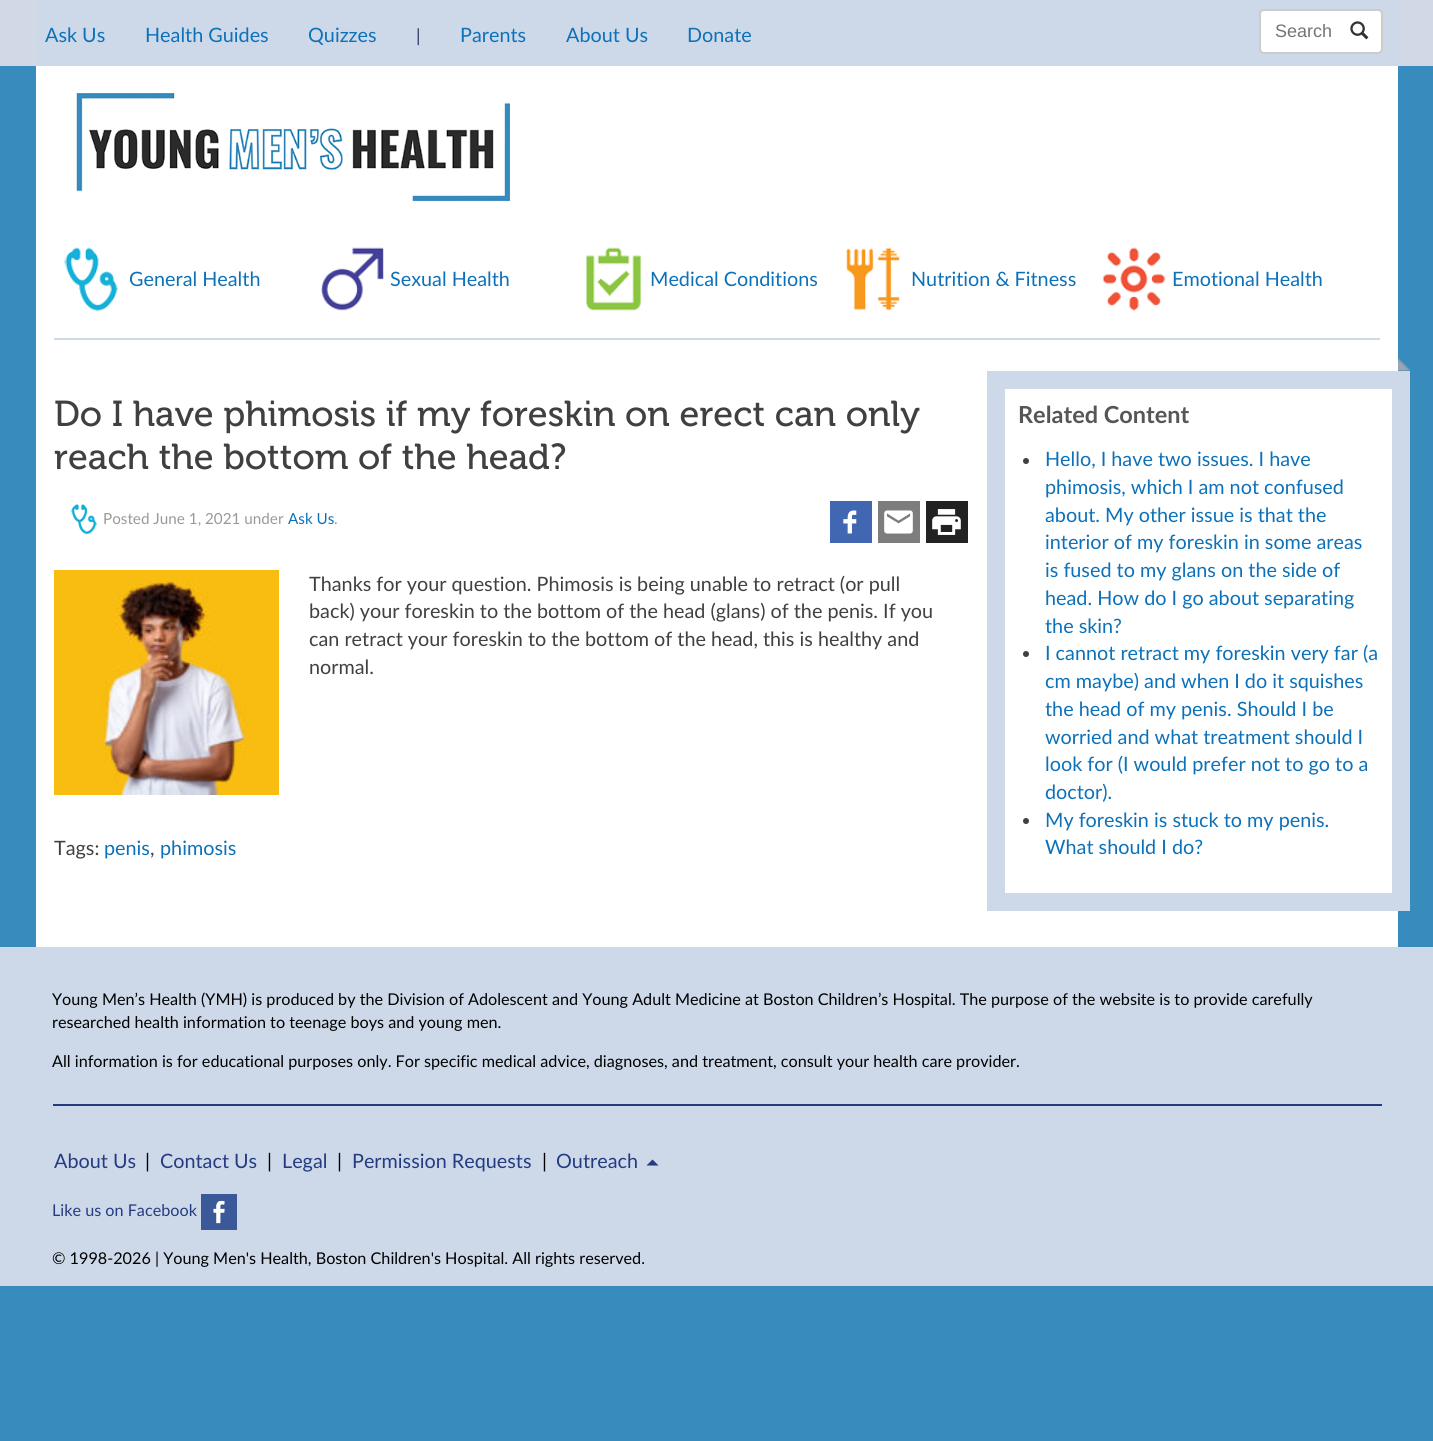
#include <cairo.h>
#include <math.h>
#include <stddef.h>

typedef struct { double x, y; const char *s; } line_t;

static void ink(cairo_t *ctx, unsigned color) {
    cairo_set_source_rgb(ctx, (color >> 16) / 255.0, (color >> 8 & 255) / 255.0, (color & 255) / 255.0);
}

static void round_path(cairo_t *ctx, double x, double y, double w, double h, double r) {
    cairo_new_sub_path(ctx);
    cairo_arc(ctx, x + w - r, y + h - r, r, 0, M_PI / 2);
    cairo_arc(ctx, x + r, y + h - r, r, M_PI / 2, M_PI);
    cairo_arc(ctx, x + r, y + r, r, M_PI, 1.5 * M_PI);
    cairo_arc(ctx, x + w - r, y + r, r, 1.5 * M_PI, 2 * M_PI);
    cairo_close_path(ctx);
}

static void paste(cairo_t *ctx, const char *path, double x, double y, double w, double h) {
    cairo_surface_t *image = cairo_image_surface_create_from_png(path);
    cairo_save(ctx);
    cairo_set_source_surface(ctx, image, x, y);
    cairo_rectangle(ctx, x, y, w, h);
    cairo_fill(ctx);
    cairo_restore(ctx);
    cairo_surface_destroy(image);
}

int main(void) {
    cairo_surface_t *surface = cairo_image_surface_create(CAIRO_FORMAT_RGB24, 1433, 1441);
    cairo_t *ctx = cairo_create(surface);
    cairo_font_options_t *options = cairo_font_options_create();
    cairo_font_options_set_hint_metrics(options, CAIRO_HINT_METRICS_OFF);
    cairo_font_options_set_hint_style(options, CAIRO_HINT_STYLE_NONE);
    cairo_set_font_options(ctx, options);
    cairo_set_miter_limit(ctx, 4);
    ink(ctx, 0x378CBD);
    cairo_paint(ctx);
    ink(ctx, 0xD2D8E6);
    cairo_rectangle(ctx, 0, 0, 1433, 66);
    cairo_fill(ctx);
    ink(ctx, 0xCDD9E9);
    cairo_rectangle(ctx, 36, 0, 1362, 66);
    cairo_fill(ctx);
    cairo_select_font_face(ctx, "Lato", CAIRO_FONT_SLANT_NORMAL, CAIRO_FONT_WEIGHT_NORMAL);
    cairo_set_font_size(ctx, 19.8);
    ink(ctx, 0x0C71B9);
    {
        static const line_t items[] = {
            {45, 42, "Ask Us"},
            {145, 42, "Health Guides"},
            {308, 42, "Quizzes"},
        };
        for (size_t i = 0; i < sizeof items / sizeof *items; i++) {
            cairo_move_to(ctx, items[i].x, items[i].y);
            cairo_show_text(ctx, items[i].s);
        }
    }
    cairo_set_font_size(ctx, 18);
    ink(ctx, 0x333366);
    cairo_move_to(ctx, 416, 42);
    cairo_show_text(ctx, "|");
    cairo_set_font_size(ctx, 19.8);
    ink(ctx, 0x0C71B9);
    {
        static const line_t items[] = {
            {460, 42, "Parents"},
            {566, 42, "About Us"},
            {687, 42, "Donate"},
        };
        for (size_t i = 0; i < sizeof items / sizeof *items; i++) {
            cairo_move_to(ctx, items[i].x, items[i].y);
            cairo_show_text(ctx, items[i].s);
        }
    }
    ink(ctx, 0xFFFFFF);
    round_path(ctx, 1260, 10, 122, 43, 4);
    cairo_fill_preserve(ctx);
    ink(ctx, 0xCCCCCC);
    cairo_stroke(ctx);
    cairo_select_font_face(ctx, "Liberation Sans", CAIRO_FONT_SLANT_NORMAL, CAIRO_FONT_WEIGHT_NORMAL);
    cairo_set_font_size(ctx, 18);
    ink(ctx, 0x757575);
    cairo_move_to(ctx, 1275, 37);
    cairo_show_text(ctx, "Search");
    paste(ctx, "media/1.png", 1350, 21, 19, 19);
    ink(ctx, 0xFFFFFF);
    cairo_rectangle(ctx, 36, 66, 1362, 881);
    cairo_fill(ctx);
    paste(ctx, "media/2.png", 76, 93, 434, 108);
    paste(ctx, "media/3.png", 64, 247, 54, 64);
    cairo_select_font_face(ctx, "Lato", CAIRO_FONT_SLANT_NORMAL, CAIRO_FONT_WEIGHT_NORMAL);
    cairo_set_font_size(ctx, 19.8);
    ink(ctx, 0x0C71B9);
    cairo_move_to(ctx, 129, 286);
    cairo_show_text(ctx, "General Health");
    paste(ctx, "media/4.png", 321, 247, 63, 64);
    cairo_move_to(ctx, 390, 286);
    cairo_show_text(ctx, "Sexual Health");
    paste(ctx, "media/5.png", 585, 247, 57, 64);
    cairo_move_to(ctx, 650, 286);
    cairo_show_text(ctx, "Medical Conditions");
    paste(ctx, "media/6.png", 846, 247, 54, 64);
    cairo_move_to(ctx, 911, 286);
    cairo_show_text(ctx, "Nutrition & Fitness");
    paste(ctx, "media/7.png", 1102, 247, 64, 64);
    cairo_move_to(ctx, 1172, 286);
    cairo_show_text(ctx, "Emotional Health");
    ink(ctx, 0xCDD9E9);
    cairo_rectangle(ctx, 54, 338, 1326, 2);
    cairo_fill(ctx);
    cairo_select_font_face(ctx, "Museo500", CAIRO_FONT_SLANT_NORMAL, CAIRO_FONT_WEIGHT_NORMAL);
    cairo_set_font_size(ctx, 36);
    ink(ctx, 0x404040);
    cairo_move_to(ctx, 54, 426);
    cairo_show_text(ctx, "Do I have phimosis if my foreskin on erect can only");
    cairo_move_to(ctx, 54, 469);
    cairo_show_text(ctx, "reach the bottom of the head?");
    paste(ctx, "media/8.png", 70, 504, 27, 30);
    cairo_select_font_face(ctx, "Lato", CAIRO_FONT_SLANT_NORMAL, CAIRO_FONT_WEIGHT_NORMAL);
    cairo_set_font_size(ctx, 15.25);
    ink(ctx, 0x999999);
    cairo_move_to(ctx, 103, 524);
    cairo_show_text(ctx, "Posted June 1, 2021 under");
    ink(ctx, 0x0C71B9);
    cairo_move_to(ctx, 288, 524);
    cairo_show_text(ctx, "Ask Us");
    ink(ctx, 0x999999);
    cairo_move_to(ctx, 334, 524);
    cairo_show_text(ctx, ".");
    ink(ctx, 0x4267B2);
    cairo_rectangle(ctx, 830, 501, 42, 42);
    cairo_fill(ctx);
    paste(ctx, "media/9.png", 843, 510, 14, 24);
    ink(ctx, 0x7D7D7D);
    cairo_rectangle(ctx, 878, 501, 42, 42);
    cairo_fill(ctx);
    paste(ctx, "media/10.png", 884, 510, 29, 24);
    ink(ctx, 0x222222);
    cairo_rectangle(ctx, 926, 501, 42, 42);
    cairo_fill(ctx);
    paste(ctx, "media/11.png", 932, 509, 29, 26);
    paste(ctx, "media/12.png", 54, 570, 225, 225);
    cairo_set_font_size(ctx, 19.8);
    ink(ctx, 0x404040);
    {
        static const line_t items[] = {
            {309, 591, "Thanks for your question. Phimosis is being unable to retract (or pull"},
            {309, 618, "back) your foreskin to the bottom of the head (glans) of the penis. If you"},
            {309, 646, "can retract your foreskin to the bottom of the head, this is healthy and"},
            {309, 674, "normal."},
            {54, 855, "Tags:"},
        };
        for (size_t i = 0; i < sizeof items / sizeof *items; i++) {
            cairo_move_to(ctx, items[i].x, items[i].y);
            cairo_show_text(ctx, items[i].s);
        }
    }
    ink(ctx, 0x0C71B9);
    cairo_move_to(ctx, 104, 855);
    cairo_show_text(ctx, "penis");
    ink(ctx, 0x404040);
    cairo_move_to(ctx, 150, 855);
    cairo_show_text(ctx, ",");
    ink(ctx, 0x0C71B9);
    cairo_move_to(ctx, 160, 855);
    cairo_show_text(ctx, "phimosis");
    ink(ctx, 0xCDD9E9);
    cairo_rectangle(ctx, 987, 371, 423, 540);
    cairo_fill(ctx);
    paste(ctx, "media/13.png", 1398, 358, 12, 13);
    ink(ctx, 0xFFFFFF);
    cairo_rectangle(ctx, 1005, 389, 387, 504);
    cairo_fill(ctx);
    cairo_select_font_face(ctx, "Lato", CAIRO_FONT_SLANT_NORMAL, CAIRO_FONT_WEIGHT_BOLD);
    cairo_set_font_size(ctx, 23.5);
    ink(ctx, 0x565656);
    cairo_move_to(ctx, 1018, 423);
    cairo_show_text(ctx, "Related Content");
    ink(ctx, 0x404040);
    cairo_new_path(ctx);
    cairo_arc(ctx, 1026, 461, 3, 0, 2 * M_PI);
    cairo_fill(ctx);
    cairo_select_font_face(ctx, "Lato", CAIRO_FONT_SLANT_NORMAL, CAIRO_FONT_WEIGHT_NORMAL);
    cairo_set_font_size(ctx, 19.8);
    ink(ctx, 0x0C71B9);
    {
        static const line_t items[] = {
            {1045, 466, "Hello, I have two issues. I have"},
            {1045, 494, "phimosis, which I am not confused"},
            {1045, 522, "about. My other issue is that the"},
            {1045, 549, "interior of my foreskin in some areas"},
            {1045, 577, "is fused to my glans on the side of"},
            {1045, 605, "head. How do I go about separating"},
            {1045, 633, "the skin?"},
        };
        for (size_t i = 0; i < sizeof items / sizeof *items; i++) {
            cairo_move_to(ctx, items[i].x, items[i].y);
            cairo_show_text(ctx, items[i].s);
        }
    }
    ink(ctx, 0x404040);
    cairo_new_path(ctx);
    cairo_arc(ctx, 1026, 654, 3, 0, 2 * M_PI);
    cairo_fill(ctx);
    ink(ctx, 0x0C71B9);
    {
        static const line_t items[] = {
            {1045, 660, "I cannot retract my foreskin very far (a"},
            {1045, 688, "cm maybe) and when I do it squishes"},
            {1045, 716, "the head of my penis. Should I be"},
            {1045, 744, "worried and what treatment should I"},
            {1045, 771, "look for (I would prefer not to go to a"},
            {1045, 799, "doctor)."},
        };
        for (size_t i = 0; i < sizeof items / sizeof *items; i++) {
            cairo_move_to(ctx, items[i].x, items[i].y);
            cairo_show_text(ctx, items[i].s);
        }
    }
    ink(ctx, 0x404040);
    cairo_new_path(ctx);
    cairo_arc(ctx, 1026, 821, 3, 0, 2 * M_PI);
    cairo_fill(ctx);
    ink(ctx, 0x0C71B9);
    cairo_move_to(ctx, 1045, 827);
    cairo_show_text(ctx, "My foreskin is stuck to my penis.");
    cairo_move_to(ctx, 1045, 854);
    cairo_show_text(ctx, "What should I do?");
    ink(ctx, 0xCDD9E9);
    cairo_rectangle(ctx, 0, 947, 1433, 339);
    cairo_fill(ctx);
    cairo_set_font_size(ctx, 16.2);
    ink(ctx, 0x000000);
    {
        static const line_t items[] = {
            {52, 1005, "Young Men’s Health (YMH) is produced by the Division of Adolescent and Young Adult Medicine at Boston Children’s Hospital. The purpose of the website is to provide carefully"},
            {52, 1028, "researched health information to teenage boys and young men."},
            {52, 1067, "All information is for educational purposes only. For specific medical advice, diagnoses, and treatment, consult your health care provider."},
        };
        for (size_t i = 0; i < sizeof items / sizeof *items; i++) {
            cairo_move_to(ctx, items[i].x, items[i].y);
            cairo_show_text(ctx, items[i].s);
        }
    }
    ink(ctx, 0x243B81);
    cairo_rectangle(ctx, 53, 1104, 1329, 2);
    cairo_fill(ctx);
    cairo_set_font_size(ctx, 19.8);
    cairo_move_to(ctx, 54, 1168);
    cairo_show_text(ctx, "About Us");
    ink(ctx, 0x000000);
    cairo_move_to(ctx, 145, 1168);
    cairo_show_text(ctx, "|");
    ink(ctx, 0x243B81);
    cairo_move_to(ctx, 160, 1168);
    cairo_show_text(ctx, "Contact Us");
    ink(ctx, 0x000000);
    cairo_move_to(ctx, 267, 1168);
    cairo_show_text(ctx, "|");
    ink(ctx, 0x243B81);
    cairo_move_to(ctx, 282, 1168);
    cairo_show_text(ctx, "Legal");
    ink(ctx, 0x000000);
    cairo_move_to(ctx, 337, 1168);
    cairo_show_text(ctx, "|");
    ink(ctx, 0x243B81);
    cairo_move_to(ctx, 352, 1168);
    cairo_show_text(ctx, "Permission Requests");
    ink(ctx, 0x000000);
    cairo_move_to(ctx, 542, 1168);
    cairo_show_text(ctx, "|");
    ink(ctx, 0x243B81);
    cairo_move_to(ctx, 556, 1168);
    cairo_show_text(ctx, "Outreach");
    cairo_new_path(ctx);
    cairo_move_to(ctx, 658.5, 1165.5);
    cairo_line_to(ctx, 646.5, 1165.5);
    cairo_line_to(ctx, 652.5, 1159.5);
    cairo_close_path(ctx);
    cairo_fill(ctx);
    cairo_set_font_size(ctx, 16.2);
    cairo_move_to(ctx, 52, 1216);
    cairo_show_text(ctx, "Like us on Facebook");
    paste(ctx, "media/14.png", 201, 1194, 36, 36);
    ink(ctx, 0x000000);
    cairo_move_to(ctx, 52, 1264);
    cairo_show_text(ctx, "© 1998-2026 | Young Men's Health, Boston Children's Hospital. All rights reserved.");
    cairo_surface_write_to_png(surface, "image.png");
    cairo_font_options_destroy(options);
    cairo_destroy(ctx);
    cairo_surface_destroy(surface);
    return 0;
}
